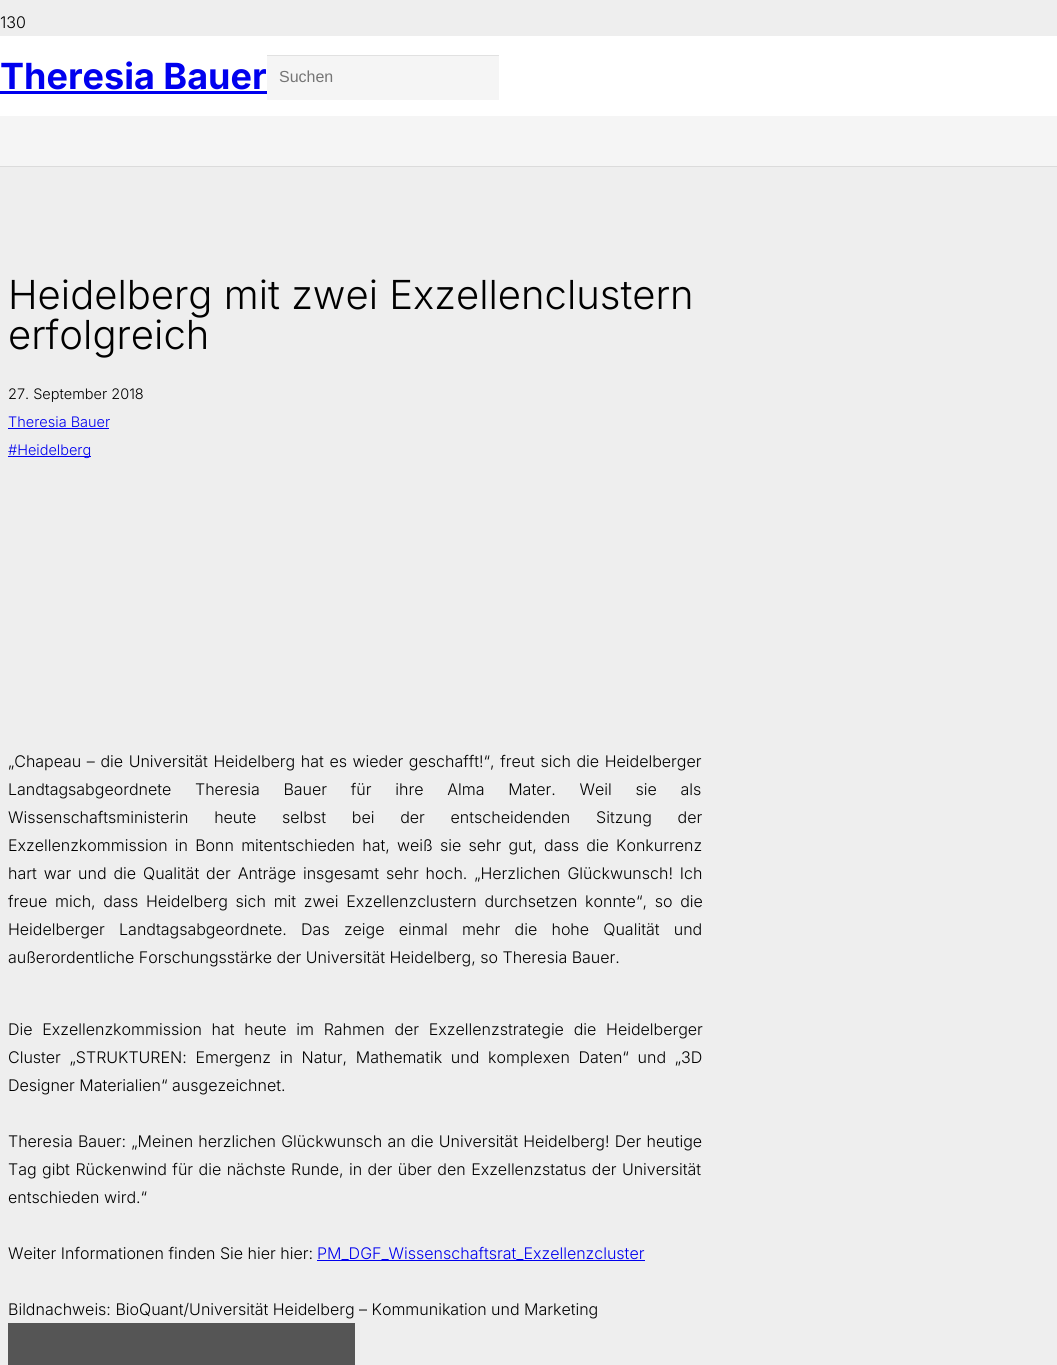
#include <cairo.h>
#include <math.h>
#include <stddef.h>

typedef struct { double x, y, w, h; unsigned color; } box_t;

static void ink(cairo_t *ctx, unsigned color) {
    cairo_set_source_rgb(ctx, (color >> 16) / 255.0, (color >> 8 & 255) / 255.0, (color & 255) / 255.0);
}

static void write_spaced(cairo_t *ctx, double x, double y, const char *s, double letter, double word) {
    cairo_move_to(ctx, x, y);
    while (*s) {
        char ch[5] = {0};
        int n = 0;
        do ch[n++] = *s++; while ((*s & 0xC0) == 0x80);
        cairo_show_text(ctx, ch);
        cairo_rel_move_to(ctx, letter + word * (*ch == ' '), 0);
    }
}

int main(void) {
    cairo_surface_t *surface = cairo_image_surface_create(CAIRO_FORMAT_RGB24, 1057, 1365);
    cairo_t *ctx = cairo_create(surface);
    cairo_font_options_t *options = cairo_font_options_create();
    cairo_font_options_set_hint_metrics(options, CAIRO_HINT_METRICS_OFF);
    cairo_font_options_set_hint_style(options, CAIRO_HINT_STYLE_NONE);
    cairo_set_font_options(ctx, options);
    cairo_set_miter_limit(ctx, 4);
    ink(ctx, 0xEEEEEE);
    cairo_paint(ctx);
    cairo_select_font_face(ctx, "Inter Light", CAIRO_FONT_SLANT_NORMAL, CAIRO_FONT_WEIGHT_NORMAL);
    cairo_set_font_size(ctx, 16);
    ink(ctx, 0x000000);
    cairo_move_to(ctx, 0, 28);
    cairo_show_text(ctx, "130");
    ink(ctx, 0xFFFFFF);
    cairo_rectangle(ctx, 0, 36, 1057, 80);
    cairo_fill(ctx);
    cairo_select_font_face(ctx, "Inter", CAIRO_FONT_SLANT_NORMAL, CAIRO_FONT_WEIGHT_BOLD);
    cairo_set_font_size(ctx, 36);
    ink(ctx, 0x0000EE);
    cairo_move_to(ctx, 0, 89);
    cairo_show_text(ctx, "Theresia Bauer");
    {
        static const box_t items[] = {
            {0, 91, 267, 3, 0x0000EE},
            {267, 56, 232, 44, 0xF5F5F5},
            {267, 55, 232, 1, 0xE1E1E1},
        };
        for (size_t i = 0; i < sizeof items / sizeof *items; i++) {
            ink(ctx, items[i].color);
            cairo_rectangle(ctx, items[i].x, items[i].y, items[i].w, items[i].h);
            cairo_fill(ctx);
        }
    }
    cairo_select_font_face(ctx, "Liberation Sans", CAIRO_FONT_SLANT_NORMAL, CAIRO_FONT_WEIGHT_NORMAL);
    cairo_set_font_size(ctx, 16);
    ink(ctx, 0x757575);
    cairo_move_to(ctx, 279, 82);
    cairo_show_text(ctx, "Suchen");
    ink(ctx, 0xDBDBDB);
    cairo_rectangle(ctx, 0, 166, 1057, 1);
    cairo_fill(ctx);
    ink(ctx, 0xF5F5F5);
    cairo_rectangle(ctx, 0, 116, 1057, 50);
    cairo_fill(ctx);
    cairo_select_font_face(ctx, "Inter Light", CAIRO_FONT_SLANT_NORMAL, CAIRO_FONT_WEIGHT_NORMAL);
    cairo_set_font_size(ctx, 40);
    ink(ctx, 0x000000);
    cairo_move_to(ctx, 8, 309);
    cairo_show_text(ctx, "Heidelberg mit zwei Exzellenclustern");
    cairo_move_to(ctx, 8, 349);
    cairo_show_text(ctx, "erfolgreich");
    cairo_set_font_size(ctx, 14.5);
    cairo_move_to(ctx, 8, 399);
    cairo_show_text(ctx, "27. September 2018");
    ink(ctx, 0x0000EE);
    cairo_move_to(ctx, 8, 427);
    cairo_show_text(ctx, "Theresia Bauer");
    cairo_rectangle(ctx, 8, 428, 101, 1);
    cairo_fill(ctx);
    cairo_rectangle(ctx, 8, 456, 83, 1);
    cairo_fill(ctx);
    cairo_move_to(ctx, 8, 455);
    cairo_show_text(ctx, "#Heidelberg");
    cairo_set_font_size(ctx, 16);
    ink(ctx, 0x000000);
    write_spaced(ctx, 8, 767, "„Chapeau – die Universität Heidelberg hat es wieder geschafft!“, freut sich die Heidelberger", 0, 1.1);
    write_spaced(ctx, 8, 795, "Landtagsabgeordnete Theresia Bauer für ihre Alma Mater. Weil sie als", 0, 19.25);
    write_spaced(ctx, 8, 823, "Wissenschaftsministerin heute selbst bei der entscheidenden Sitzung der", 0, 21.25);
    write_spaced(ctx, 8, 851, "Exzellenzkommission in Bonn mitentschieden hat, weiß sie sehr gut, dass die Konkurrenz", 0, 2.75);
    write_spaced(ctx, 8, 879, "hart war und die Qualität der Anträge insgesamt sehr hoch. „Herzlichen Glückwunsch! Ich", 0, 2.4);
    write_spaced(ctx, 8, 907, "freue mich, dass Heidelberg sich mit zwei Exzellenzclustern durchsetzen konnte“, so die", 0, 3.25);
    write_spaced(ctx, 8, 935, "Heidelberger Landtagsabgeordnete. Das zeige einmal mehr die hohe Qualität und", 0, 9.75);
    cairo_move_to(ctx, 8, 963);
    cairo_show_text(ctx, "außerordentliche Forschungsstärke der Universität Heidelberg, so Theresia Bauer.");
    write_spaced(ctx, 8, 1035, "Die Exzellenzkommission hat heute im Rahmen der Exzellenzstrategie die Heidelberger", 0, 5.25);
    write_spaced(ctx, 8, 1063, "Cluster „STRUKTUREN: Emergenz in Natur, Mathematik und komplexen Daten“ und „3D", 0, 4.25);
    cairo_move_to(ctx, 8, 1091);
    cairo_show_text(ctx, "Designer Materialien“ ausgezeichnet.");
    write_spaced(ctx, 8, 1147, "Theresia Bauer: „Meinen herzlichen Glückwunsch an die Universität Heidelberg! Der heutige", 0, 0.75);
    write_spaced(ctx, 8, 1175, "Tag gibt Rückenwind für die nächste Runde, in der über den Exzellenzstatus der Universität", 0, 1);
    cairo_move_to(ctx, 8, 1203);
    cairo_show_text(ctx, "entschieden wird.“");
    cairo_move_to(ctx, 8, 1259);
    cairo_show_text(ctx, "Weiter Informationen finden Sie hier hier:");
    ink(ctx, 0x0000EE);
    cairo_move_to(ctx, 317, 1259);
    cairo_show_text(ctx, "PM_DGF_Wissenschaftsrat_Exzellenzcluster");
    cairo_rectangle(ctx, 317, 1260, 328, 1);
    cairo_fill(ctx);
    ink(ctx, 0x000000);
    cairo_move_to(ctx, 8, 1315);
    cairo_show_text(ctx, "Bildnachweis: BioQuant/Universität Heidelberg – Kommunikation und Marketing");
    ink(ctx, 0x555555);
    cairo_rectangle(ctx, 8, 1323, 347, 42);
    cairo_fill(ctx);
    cairo_surface_write_to_png(surface, "image.png");
    cairo_font_options_destroy(options);
    cairo_destroy(ctx);
    cairo_surface_destroy(surface);
    return 0;
}
